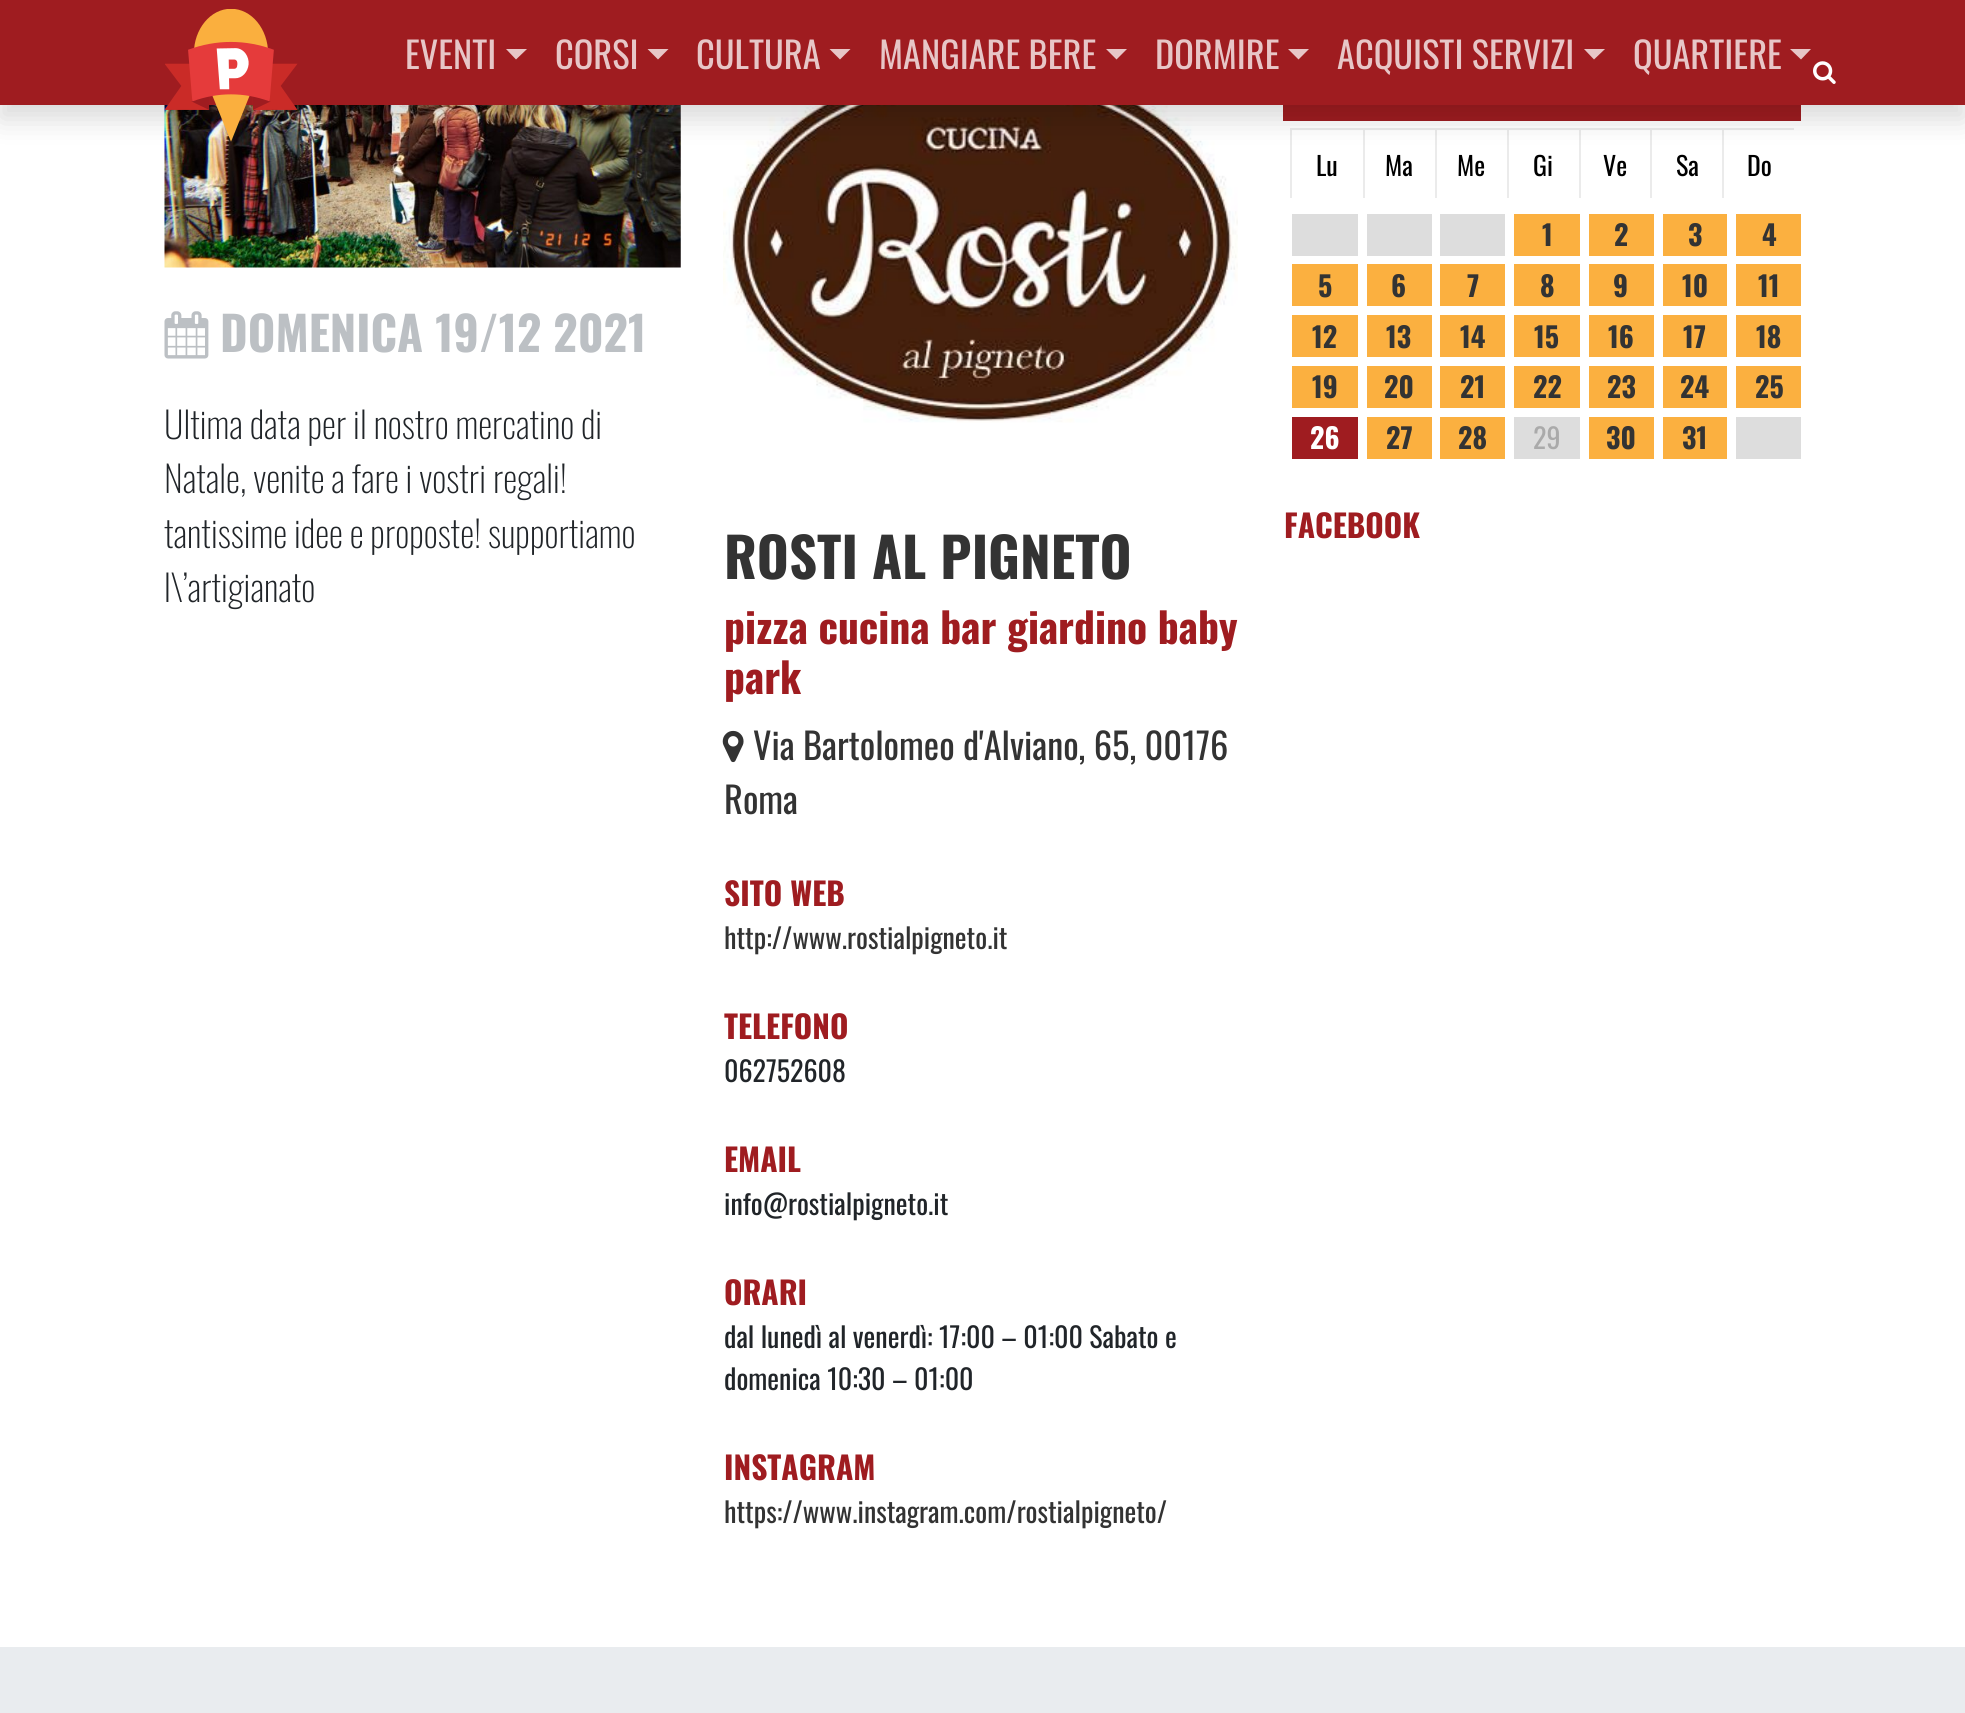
#include <cairo.h>
#include <math.h>
#include <stddef.h>

typedef struct { double x, y; const char *s; } line_t;
typedef struct { double x, y, w, h; unsigned color; } box_t;

static void ink(cairo_t *ctx, unsigned color) {
    cairo_set_source_rgb(ctx, (color >> 16) / 255.0, (color >> 8 & 255) / 255.0, (color & 255) / 255.0);
}

static void round_path(cairo_t *ctx, double x, double y, double w, double h, double r) {
    cairo_new_sub_path(ctx);
    cairo_arc(ctx, x + w - r, y + h - r, r, 0, M_PI / 2);
    cairo_arc(ctx, x + r, y + h - r, r, M_PI / 2, M_PI);
    cairo_arc(ctx, x + r, y + r, r, M_PI, 1.5 * M_PI);
    cairo_arc(ctx, x + w - r, y + r, r, 1.5 * M_PI, 2 * M_PI);
    cairo_close_path(ctx);
}

static void blur_box(cairo_t *ctx, double x, double y, double w, double h, double r, double blur, double alpha) {
    cairo_push_group_with_content(ctx, CAIRO_CONTENT_ALPHA);
    cairo_set_operator(ctx, CAIRO_OPERATOR_SOURCE);
    for (int i = 15; i >= -15 && fmin(w, h) + blur * i / 3 > 0; i -= 2) {
        double e = blur * i / 6;
        cairo_set_source_rgba(ctx, 0, 0, 0, alpha * erfc((i - 1) / 8.5) / 2);
        round_path(ctx, x - e, y - e, w + 2 * e, h + 2 * e, fmax(0, fmin(r + e + blur * .6, fmin(w, h) / 2 + e)));
        cairo_fill(ctx);
    }
    cairo_pattern_t *soft = cairo_pop_group(ctx);
    cairo_mask(ctx, soft);
    cairo_pattern_destroy(soft);
}

static void paste(cairo_t *ctx, const char *path, double x, double y, double w, double h) {
    cairo_surface_t *image = cairo_image_surface_create_from_png(path);
    cairo_save(ctx);
    cairo_set_source_surface(ctx, image, x, y);
    cairo_rectangle(ctx, x, y, w, h);
    cairo_fill(ctx);
    cairo_restore(ctx);
    cairo_surface_destroy(image);
}

int main(void) {
    cairo_surface_t *surface = cairo_image_surface_create(CAIRO_FORMAT_RGB24, 1965, 1713);
    cairo_t *ctx = cairo_create(surface);
    cairo_font_options_t *options = cairo_font_options_create();
    cairo_font_options_set_hint_metrics(options, CAIRO_HINT_METRICS_OFF);
    cairo_font_options_set_hint_style(options, CAIRO_HINT_STYLE_NONE);
    cairo_set_font_options(ctx, options);
    cairo_set_miter_limit(ctx, 4);
    ink(ctx, 0xFFFFFF);
    cairo_paint(ctx);
    paste(ctx, "media/3.png", 164, 105, 517, 163);
    {
        static const box_t items[] = {
            {1283, 105, 518, 16, 0x9F1C20},
            {1290, 128, 504, 2, 0xEBEBEB},
            {1290, 128, 2, 70, 0xEBEBEB},
            {1363, 128, 2, 70, 0xEBEBEB},
            {1435, 128, 2, 70, 0xEBEBEB},
            {1507, 128, 2, 70, 0xEBEBEB},
            {1579, 128, 2, 70, 0xEBEBEB},
            {1650, 128, 2, 70, 0xEBEBEB},
            {1722, 128, 2, 70, 0xEBEBEB},
        };
        for (size_t i = 0; i < sizeof items / sizeof *items; i++) {
            ink(ctx, items[i].color);
            cairo_rectangle(ctx, items[i].x, items[i].y, items[i].w, items[i].h);
            cairo_fill(ctx);
        }
    }
    paste(ctx, "media/5.png", 723, 105, 515, 318);
    ink(ctx, 0x000000);
    blur_box(ctx, 0, 14, 1965, 105, 0, 14, 0.15);
    ink(ctx, 0x9F1C20);
    cairo_rectangle(ctx, 0, 0, 1965, 105);
    cairo_fill(ctx);
    paste(ctx, "media/1.png", 165, 9, 133, 133);
    cairo_select_font_face(ctx, "Oswald", CAIRO_FONT_SLANT_NORMAL, CAIRO_FONT_WEIGHT_NORMAL);
    cairo_set_font_size(ctx, 36.4);
    ink(ctx, 0xE7C6C7);
    cairo_move_to(ctx, 405, 69);
    cairo_show_text(ctx, "EVENTI");
    cairo_new_path(ctx);
    cairo_move_to(ctx, 506, 49);
    cairo_line_to(ctx, 527, 49);
    cairo_line_to(ctx, 516, 59.5);
    cairo_close_path(ctx);
    cairo_fill(ctx);
    cairo_move_to(ctx, 555, 69);
    cairo_show_text(ctx, "CORSI");
    cairo_new_path(ctx);
    cairo_move_to(ctx, 647.5, 49);
    cairo_line_to(ctx, 668.5, 49);
    cairo_line_to(ctx, 658, 59.5);
    cairo_close_path(ctx);
    cairo_fill(ctx);
    cairo_move_to(ctx, 696, 69);
    cairo_show_text(ctx, "CULTURA");
    cairo_new_path(ctx);
    cairo_move_to(ctx, 829.5, 49);
    cairo_line_to(ctx, 850.5, 49);
    cairo_line_to(ctx, 840, 59.5);
    cairo_close_path(ctx);
    cairo_fill(ctx);
    cairo_move_to(ctx, 879, 69);
    cairo_show_text(ctx, "MANGIARE BERE");
    cairo_new_path(ctx);
    cairo_move_to(ctx, 1106, 49);
    cairo_line_to(ctx, 1127, 49);
    cairo_line_to(ctx, 1116.5, 59.5);
    cairo_close_path(ctx);
    cairo_fill(ctx);
    cairo_move_to(ctx, 1155, 69);
    cairo_show_text(ctx, "DORMIRE");
    cairo_new_path(ctx);
    cairo_move_to(ctx, 1288, 49);
    cairo_line_to(ctx, 1309, 49);
    cairo_line_to(ctx, 1298.5, 59.5);
    cairo_close_path(ctx);
    cairo_fill(ctx);
    cairo_move_to(ctx, 1337, 69);
    cairo_show_text(ctx, "ACQUISTI SERVIZI");
    cairo_new_path(ctx);
    cairo_move_to(ctx, 1584, 49);
    cairo_line_to(ctx, 1605, 49);
    cairo_line_to(ctx, 1594, 59.5);
    cairo_close_path(ctx);
    cairo_fill(ctx);
    cairo_move_to(ctx, 1633, 69);
    cairo_show_text(ctx, "QUARTIERE");
    cairo_new_path(ctx);
    cairo_move_to(ctx, 1790, 49);
    cairo_line_to(ctx, 1811, 49);
    cairo_line_to(ctx, 1801, 59.5);
    cairo_close_path(ctx);
    cairo_fill(ctx);
    paste(ctx, "media/2.png", 1813, 61, 23, 23);
    paste(ctx, "media/4.png", 164, 311, 45, 48);
    cairo_select_font_face(ctx, "Oswald", CAIRO_FONT_SLANT_NORMAL, CAIRO_FONT_WEIGHT_BOLD);
    cairo_set_font_size(ctx, 47.25);
    ink(ctx, 0xBCC0C4);
    cairo_move_to(ctx, 220, 352);
    cairo_show_text(ctx, "DOMENICA 19/12 2021");
    cairo_select_font_face(ctx, "Oswald ExtraLight", CAIRO_FONT_SLANT_NORMAL, CAIRO_FONT_WEIGHT_NORMAL);
    cairo_set_font_size(ctx, 36.4);
    ink(ctx, 0x212529);
    {
        static const line_t items[] = {
            {164, 439, "Ultima data per il nostro mercatino di"},
            {164, 493, "Natale, venite a fare i vostri regali!"},
            {164, 548, "tantissime idee e proposte! supportiamo"},
            {164, 602, "l\\’artigianato"},
        };
        for (size_t i = 0; i < sizeof items / sizeof *items; i++) {
            cairo_move_to(ctx, items[i].x, items[i].y);
            cairo_show_text(ctx, items[i].s);
        }
    }
    cairo_select_font_face(ctx, "Oswald", CAIRO_FONT_SLANT_NORMAL, CAIRO_FONT_WEIGHT_NORMAL);
    cairo_set_font_size(ctx, 26);
    ink(ctx, 0x000000);
    {
        static const line_t items[] = {
            {1316, 176, "Lu"},
            {1385, 176, "Ma"},
            {1457, 176, "Me"},
            {1533, 176, "Gi"},
            {1603, 176, "Ve"},
            {1676, 176, "Sa"},
            {1747, 176, "Do"},
        };
        for (size_t i = 0; i < sizeof items / sizeof *items; i++) {
            cairo_move_to(ctx, items[i].x, items[i].y);
            cairo_show_text(ctx, items[i].s);
        }
    }
    {
        static const box_t items[] = {
            {1292, 214, 66, 42, 0xDDDDDD},
            {1367, 214, 65, 42, 0xDDDDDD},
            {1440, 214, 65, 42, 0xDDDDDD},
            {1514, 214, 66, 42, 0xFBB040},
        };
        for (size_t i = 0; i < sizeof items / sizeof *items; i++) {
            ink(ctx, items[i].color);
            cairo_rectangle(ctx, items[i].x, items[i].y, items[i].w, items[i].h);
            cairo_fill(ctx);
        }
    }
    cairo_select_font_face(ctx, "Oswald", CAIRO_FONT_SLANT_NORMAL, CAIRO_FONT_WEIGHT_BOLD);
    cairo_set_font_size(ctx, 28);
    ink(ctx, 0x333333);
    cairo_move_to(ctx, 1542, 246);
    cairo_show_text(ctx, "1");
    ink(ctx, 0xFBB040);
    cairo_rectangle(ctx, 1589, 214, 65, 42);
    cairo_fill(ctx);
    ink(ctx, 0x333333);
    cairo_move_to(ctx, 1614, 246);
    cairo_show_text(ctx, "2");
    ink(ctx, 0xFBB040);
    cairo_rectangle(ctx, 1663, 214, 64, 42);
    cairo_fill(ctx);
    ink(ctx, 0x333333);
    cairo_move_to(ctx, 1688, 246);
    cairo_show_text(ctx, "3");
    ink(ctx, 0xFBB040);
    cairo_rectangle(ctx, 1736, 214, 65, 42);
    cairo_fill(ctx);
    ink(ctx, 0x333333);
    cairo_move_to(ctx, 1762, 246);
    cairo_show_text(ctx, "4");
    ink(ctx, 0xFBB040);
    cairo_rectangle(ctx, 1292, 264, 66, 42);
    cairo_fill(ctx);
    ink(ctx, 0x333333);
    cairo_move_to(ctx, 1318, 297);
    cairo_show_text(ctx, "5");
    ink(ctx, 0xFBB040);
    cairo_rectangle(ctx, 1367, 264, 65, 42);
    cairo_fill(ctx);
    ink(ctx, 0x333333);
    cairo_move_to(ctx, 1391, 297);
    cairo_show_text(ctx, "6");
    ink(ctx, 0xFBB040);
    cairo_rectangle(ctx, 1440, 264, 65, 42);
    cairo_fill(ctx);
    ink(ctx, 0x333333);
    cairo_move_to(ctx, 1467, 297);
    cairo_show_text(ctx, "7");
    ink(ctx, 0xFBB040);
    cairo_rectangle(ctx, 1514, 264, 66, 42);
    cairo_fill(ctx);
    ink(ctx, 0x333333);
    cairo_move_to(ctx, 1540, 297);
    cairo_show_text(ctx, "8");
    ink(ctx, 0xFBB040);
    cairo_rectangle(ctx, 1589, 264, 65, 42);
    cairo_fill(ctx);
    ink(ctx, 0x333333);
    cairo_move_to(ctx, 1613, 297);
    cairo_show_text(ctx, "9");
    ink(ctx, 0xFBB040);
    cairo_rectangle(ctx, 1663, 264, 64, 42);
    cairo_fill(ctx);
    ink(ctx, 0x333333);
    cairo_move_to(ctx, 1682, 297);
    cairo_show_text(ctx, "10");
    ink(ctx, 0xFBB040);
    cairo_rectangle(ctx, 1736, 264, 65, 42);
    cairo_fill(ctx);
    ink(ctx, 0x333333);
    cairo_move_to(ctx, 1758, 297);
    cairo_show_text(ctx, "11");
    ink(ctx, 0xFBB040);
    cairo_rectangle(ctx, 1292, 315, 66, 42);
    cairo_fill(ctx);
    ink(ctx, 0x333333);
    cairo_move_to(ctx, 1312, 348);
    cairo_show_text(ctx, "12");
    ink(ctx, 0xFBB040);
    cairo_rectangle(ctx, 1367, 315, 65, 42);
    cairo_fill(ctx);
    ink(ctx, 0x333333);
    cairo_move_to(ctx, 1386, 348);
    cairo_show_text(ctx, "13");
    ink(ctx, 0xFBB040);
    cairo_rectangle(ctx, 1440, 315, 65, 42);
    cairo_fill(ctx);
    ink(ctx, 0x333333);
    cairo_move_to(ctx, 1460, 348);
    cairo_show_text(ctx, "14");
    ink(ctx, 0xFBB040);
    cairo_rectangle(ctx, 1514, 315, 66, 42);
    cairo_fill(ctx);
    ink(ctx, 0x333333);
    cairo_move_to(ctx, 1534, 348);
    cairo_show_text(ctx, "15");
    ink(ctx, 0xFBB040);
    cairo_rectangle(ctx, 1589, 315, 65, 42);
    cairo_fill(ctx);
    ink(ctx, 0x333333);
    cairo_move_to(ctx, 1608, 348);
    cairo_show_text(ctx, "16");
    ink(ctx, 0xFBB040);
    cairo_rectangle(ctx, 1663, 315, 64, 42);
    cairo_fill(ctx);
    ink(ctx, 0x333333);
    cairo_move_to(ctx, 1683, 348);
    cairo_show_text(ctx, "17");
    ink(ctx, 0xFBB040);
    cairo_rectangle(ctx, 1736, 315, 65, 42);
    cairo_fill(ctx);
    ink(ctx, 0x333333);
    cairo_move_to(ctx, 1756, 348);
    cairo_show_text(ctx, "18");
    ink(ctx, 0xFBB040);
    cairo_rectangle(ctx, 1292, 366, 66, 42);
    cairo_fill(ctx);
    ink(ctx, 0x333333);
    cairo_move_to(ctx, 1312, 398);
    cairo_show_text(ctx, "19");
    ink(ctx, 0xFBB040);
    cairo_rectangle(ctx, 1367, 366, 65, 42);
    cairo_fill(ctx);
    ink(ctx, 0x333333);
    cairo_move_to(ctx, 1384, 398);
    cairo_show_text(ctx, "20");
    ink(ctx, 0xFBB040);
    cairo_rectangle(ctx, 1440, 366, 65, 42);
    cairo_fill(ctx);
    ink(ctx, 0x333333);
    cairo_move_to(ctx, 1460, 398);
    cairo_show_text(ctx, "21");
    ink(ctx, 0xFBB040);
    cairo_rectangle(ctx, 1514, 366, 66, 42);
    cairo_fill(ctx);
    ink(ctx, 0x333333);
    cairo_move_to(ctx, 1533, 398);
    cairo_show_text(ctx, "22");
    ink(ctx, 0xFBB040);
    cairo_rectangle(ctx, 1589, 366, 65, 42);
    cairo_fill(ctx);
    ink(ctx, 0x333333);
    cairo_move_to(ctx, 1607, 398);
    cairo_show_text(ctx, "23");
    ink(ctx, 0xFBB040);
    cairo_rectangle(ctx, 1663, 366, 64, 42);
    cairo_fill(ctx);
    ink(ctx, 0x333333);
    cairo_move_to(ctx, 1680, 398);
    cairo_show_text(ctx, "24");
    ink(ctx, 0xFBB040);
    cairo_rectangle(ctx, 1736, 366, 65, 42);
    cairo_fill(ctx);
    ink(ctx, 0x333333);
    cairo_move_to(ctx, 1755, 398);
    cairo_show_text(ctx, "25");
    ink(ctx, 0x9F1C20);
    cairo_rectangle(ctx, 1292, 417, 66, 42);
    cairo_fill(ctx);
    ink(ctx, 0xFFFFFF);
    cairo_move_to(ctx, 1310, 449);
    cairo_show_text(ctx, "26");
    ink(ctx, 0xFBB040);
    cairo_rectangle(ctx, 1367, 417, 65, 42);
    cairo_fill(ctx);
    ink(ctx, 0x333333);
    cairo_move_to(ctx, 1386, 449);
    cairo_show_text(ctx, "27");
    ink(ctx, 0xFBB040);
    cairo_rectangle(ctx, 1440, 417, 65, 42);
    cairo_fill(ctx);
    ink(ctx, 0x333333);
    cairo_move_to(ctx, 1458, 449);
    cairo_show_text(ctx, "28");
    ink(ctx, 0xDDDDDD);
    cairo_rectangle(ctx, 1514, 417, 66, 42);
    cairo_fill(ctx);
    cairo_select_font_face(ctx, "Oswald", CAIRO_FONT_SLANT_NORMAL, CAIRO_FONT_WEIGHT_NORMAL);
    ink(ctx, 0xAAAAAA);
    cairo_move_to(ctx, 1533, 449);
    cairo_show_text(ctx, "29");
    ink(ctx, 0xFBB040);
    cairo_rectangle(ctx, 1589, 417, 65, 42);
    cairo_fill(ctx);
    cairo_select_font_face(ctx, "Oswald", CAIRO_FONT_SLANT_NORMAL, CAIRO_FONT_WEIGHT_BOLD);
    ink(ctx, 0x333333);
    cairo_move_to(ctx, 1606, 449);
    cairo_show_text(ctx, "30");
    ink(ctx, 0xFBB040);
    cairo_rectangle(ctx, 1663, 417, 64, 42);
    cairo_fill(ctx);
    ink(ctx, 0x333333);
    cairo_move_to(ctx, 1682, 449);
    cairo_show_text(ctx, "31");
    ink(ctx, 0xDDDDDD);
    cairo_rectangle(ctx, 1736, 417, 65, 42);
    cairo_fill(ctx);
    cairo_set_font_size(ctx, 31.5);
    ink(ctx, 0x9F1C20);
    cairo_move_to(ctx, 1284, 538);
    cairo_show_text(ctx, "FACEBOOK");
    cairo_set_font_size(ctx, 54.75);
    ink(ctx, 0x333333);
    cairo_move_to(ctx, 724, 579);
    cairo_show_text(ctx, "ROSTI AL PIGNETO");
    cairo_set_font_size(ctx, 41.6);
    ink(ctx, 0x9F1C20);
    cairo_move_to(ctx, 724, 644);
    cairo_show_text(ctx, "pizza cucina bar giardino baby");
    cairo_move_to(ctx, 724, 694);
    cairo_show_text(ctx, "park");
    paste(ctx, "media/6.png", 722, 730, 22, 33);
    cairo_select_font_face(ctx, "Oswald", CAIRO_FONT_SLANT_NORMAL, CAIRO_FONT_WEIGHT_NORMAL);
    cairo_set_font_size(ctx, 36.4);
    ink(ctx, 0x333333);
    cairo_move_to(ctx, 753, 760);
    cairo_show_text(ctx, "Via Bartolomeo d'Alviano, 65, 00176");
    cairo_move_to(ctx, 724, 814);
    cairo_show_text(ctx, "Roma");
    cairo_select_font_face(ctx, "Oswald", CAIRO_FONT_SLANT_NORMAL, CAIRO_FONT_WEIGHT_BOLD);
    cairo_set_font_size(ctx, 31.5);
    ink(ctx, 0x9F1C20);
    cairo_move_to(ctx, 724, 906);
    cairo_show_text(ctx, "SITO WEB");
    cairo_select_font_face(ctx, "Oswald", CAIRO_FONT_SLANT_NORMAL, CAIRO_FONT_WEIGHT_NORMAL);
    cairo_set_font_size(ctx, 28);
    ink(ctx, 0x333333);
    cairo_move_to(ctx, 724, 949);
    cairo_show_text(ctx, "http://www.rostialpigneto.it");
    cairo_select_font_face(ctx, "Oswald", CAIRO_FONT_SLANT_NORMAL, CAIRO_FONT_WEIGHT_BOLD);
    cairo_set_font_size(ctx, 31.5);
    ink(ctx, 0x9F1C20);
    cairo_move_to(ctx, 724, 1039);
    cairo_show_text(ctx, "TELEFONO");
    cairo_select_font_face(ctx, "Oswald", CAIRO_FONT_SLANT_NORMAL, CAIRO_FONT_WEIGHT_NORMAL);
    cairo_set_font_size(ctx, 28);
    ink(ctx, 0x212529);
    cairo_move_to(ctx, 724, 1082);
    cairo_show_text(ctx, "062752608");
    cairo_select_font_face(ctx, "Oswald", CAIRO_FONT_SLANT_NORMAL, CAIRO_FONT_WEIGHT_BOLD);
    cairo_set_font_size(ctx, 31.5);
    ink(ctx, 0x9F1C20);
    cairo_move_to(ctx, 724, 1172);
    cairo_show_text(ctx, "EMAIL");
    cairo_select_font_face(ctx, "Oswald", CAIRO_FONT_SLANT_NORMAL, CAIRO_FONT_WEIGHT_NORMAL);
    cairo_set_font_size(ctx, 28);
    ink(ctx, 0x212529);
    cairo_move_to(ctx, 724, 1215);
    cairo_show_text(ctx, "info@rostialpigneto.it");
    cairo_select_font_face(ctx, "Oswald", CAIRO_FONT_SLANT_NORMAL, CAIRO_FONT_WEIGHT_BOLD);
    cairo_set_font_size(ctx, 31.5);
    ink(ctx, 0x9F1C20);
    cairo_move_to(ctx, 724, 1305);
    cairo_show_text(ctx, "ORARI");
    cairo_select_font_face(ctx, "Oswald", CAIRO_FONT_SLANT_NORMAL, CAIRO_FONT_WEIGHT_NORMAL);
    cairo_set_font_size(ctx, 28);
    ink(ctx, 0x212529);
    cairo_move_to(ctx, 724, 1348);
    cairo_show_text(ctx, "dal lunedì al venerdì: 17:00 – 01:00 Sabato e");
    cairo_move_to(ctx, 724, 1390);
    cairo_show_text(ctx, "domenica 10:30 – 01:00");
    cairo_select_font_face(ctx, "Oswald", CAIRO_FONT_SLANT_NORMAL, CAIRO_FONT_WEIGHT_BOLD);
    cairo_set_font_size(ctx, 31.5);
    ink(ctx, 0x9F1C20);
    cairo_move_to(ctx, 724, 1480);
    cairo_show_text(ctx, "INSTAGRAM");
    cairo_select_font_face(ctx, "Oswald", CAIRO_FONT_SLANT_NORMAL, CAIRO_FONT_WEIGHT_NORMAL);
    cairo_set_font_size(ctx, 28);
    ink(ctx, 0x333333);
    cairo_move_to(ctx, 724, 1523);
    cairo_show_text(ctx, "https://www.instagram.com/rostialpigneto/");
    ink(ctx, 0xE9ECEF);
    cairo_rectangle(ctx, 0, 1647, 1965, 66);
    cairo_fill(ctx);
    cairo_surface_write_to_png(surface, "image.png");
    cairo_font_options_destroy(options);
    cairo_destroy(ctx);
    cairo_surface_destroy(surface);
    return 0;
}
